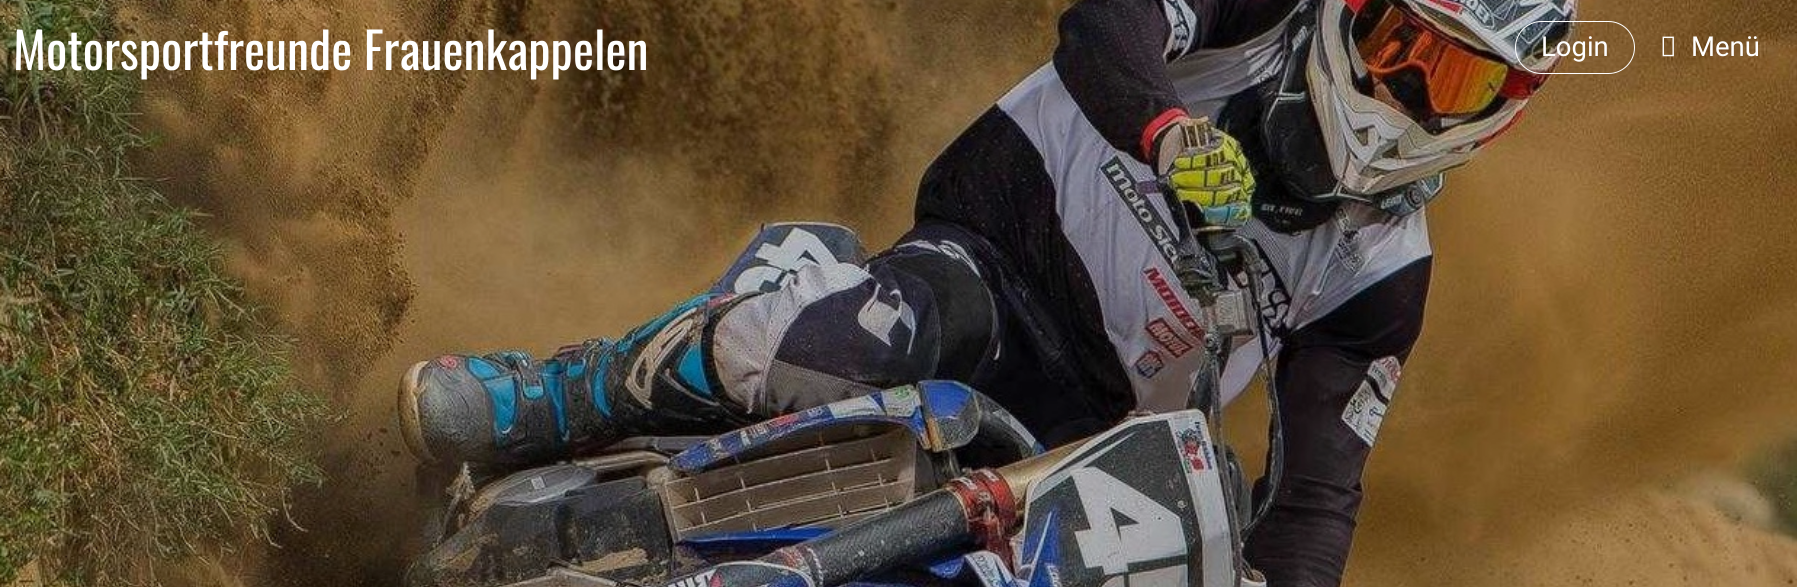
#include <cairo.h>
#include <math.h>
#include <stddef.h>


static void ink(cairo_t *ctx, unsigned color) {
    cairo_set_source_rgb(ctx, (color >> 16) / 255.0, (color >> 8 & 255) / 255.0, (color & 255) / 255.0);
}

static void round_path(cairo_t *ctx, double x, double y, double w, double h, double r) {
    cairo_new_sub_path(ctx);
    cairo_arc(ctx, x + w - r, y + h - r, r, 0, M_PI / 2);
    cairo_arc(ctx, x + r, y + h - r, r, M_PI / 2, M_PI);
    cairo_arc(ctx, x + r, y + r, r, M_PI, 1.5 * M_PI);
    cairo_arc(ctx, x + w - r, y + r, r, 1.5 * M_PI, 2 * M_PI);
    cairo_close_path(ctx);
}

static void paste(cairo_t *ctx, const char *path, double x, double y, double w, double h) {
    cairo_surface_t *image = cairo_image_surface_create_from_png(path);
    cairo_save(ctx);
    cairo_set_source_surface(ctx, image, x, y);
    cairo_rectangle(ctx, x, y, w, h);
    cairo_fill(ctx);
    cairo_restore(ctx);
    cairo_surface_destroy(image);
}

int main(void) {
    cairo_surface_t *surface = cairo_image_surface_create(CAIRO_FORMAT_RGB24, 1797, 587);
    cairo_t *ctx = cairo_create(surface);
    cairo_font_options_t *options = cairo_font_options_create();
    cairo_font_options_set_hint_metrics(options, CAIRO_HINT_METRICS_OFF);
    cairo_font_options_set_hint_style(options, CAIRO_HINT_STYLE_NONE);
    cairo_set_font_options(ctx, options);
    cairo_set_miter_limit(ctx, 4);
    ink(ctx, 0xFFFFFF);
    cairo_paint(ctx);
    paste(ctx, "media/1.png", 0, 0, 1797, 587);
    cairo_select_font_face(ctx, "Oswald", CAIRO_FONT_SLANT_NORMAL, CAIRO_FONT_WEIGHT_NORMAL);
    cairo_set_font_size(ctx, 50);
    ink(ctx, 0xFFFFFF);
    cairo_move_to(ctx, 13, 70);
    cairo_show_text(ctx, "Motorsportfreunde Frauenkappelen");
    round_path(ctx, 1515.5, 21.5, 119, 52, 26);
    cairo_set_line_width(ctx, 1);
    cairo_stroke(ctx);
    cairo_select_font_face(ctx, "Roboto", CAIRO_FONT_SLANT_NORMAL, CAIRO_FONT_WEIGHT_NORMAL);
    cairo_set_font_size(ctx, 27.5);
    cairo_move_to(ctx, 1541, 56);
    cairo_show_text(ctx, "Login");
    paste(ctx, "media/2.png", 1662, 36, 12, 21);
    cairo_move_to(ctx, 1691, 56);
    cairo_show_text(ctx, "Menü");
    cairo_surface_write_to_png(surface, "image.png");
    cairo_font_options_destroy(options);
    cairo_destroy(ctx);
    cairo_surface_destroy(surface);
    return 0;
}
